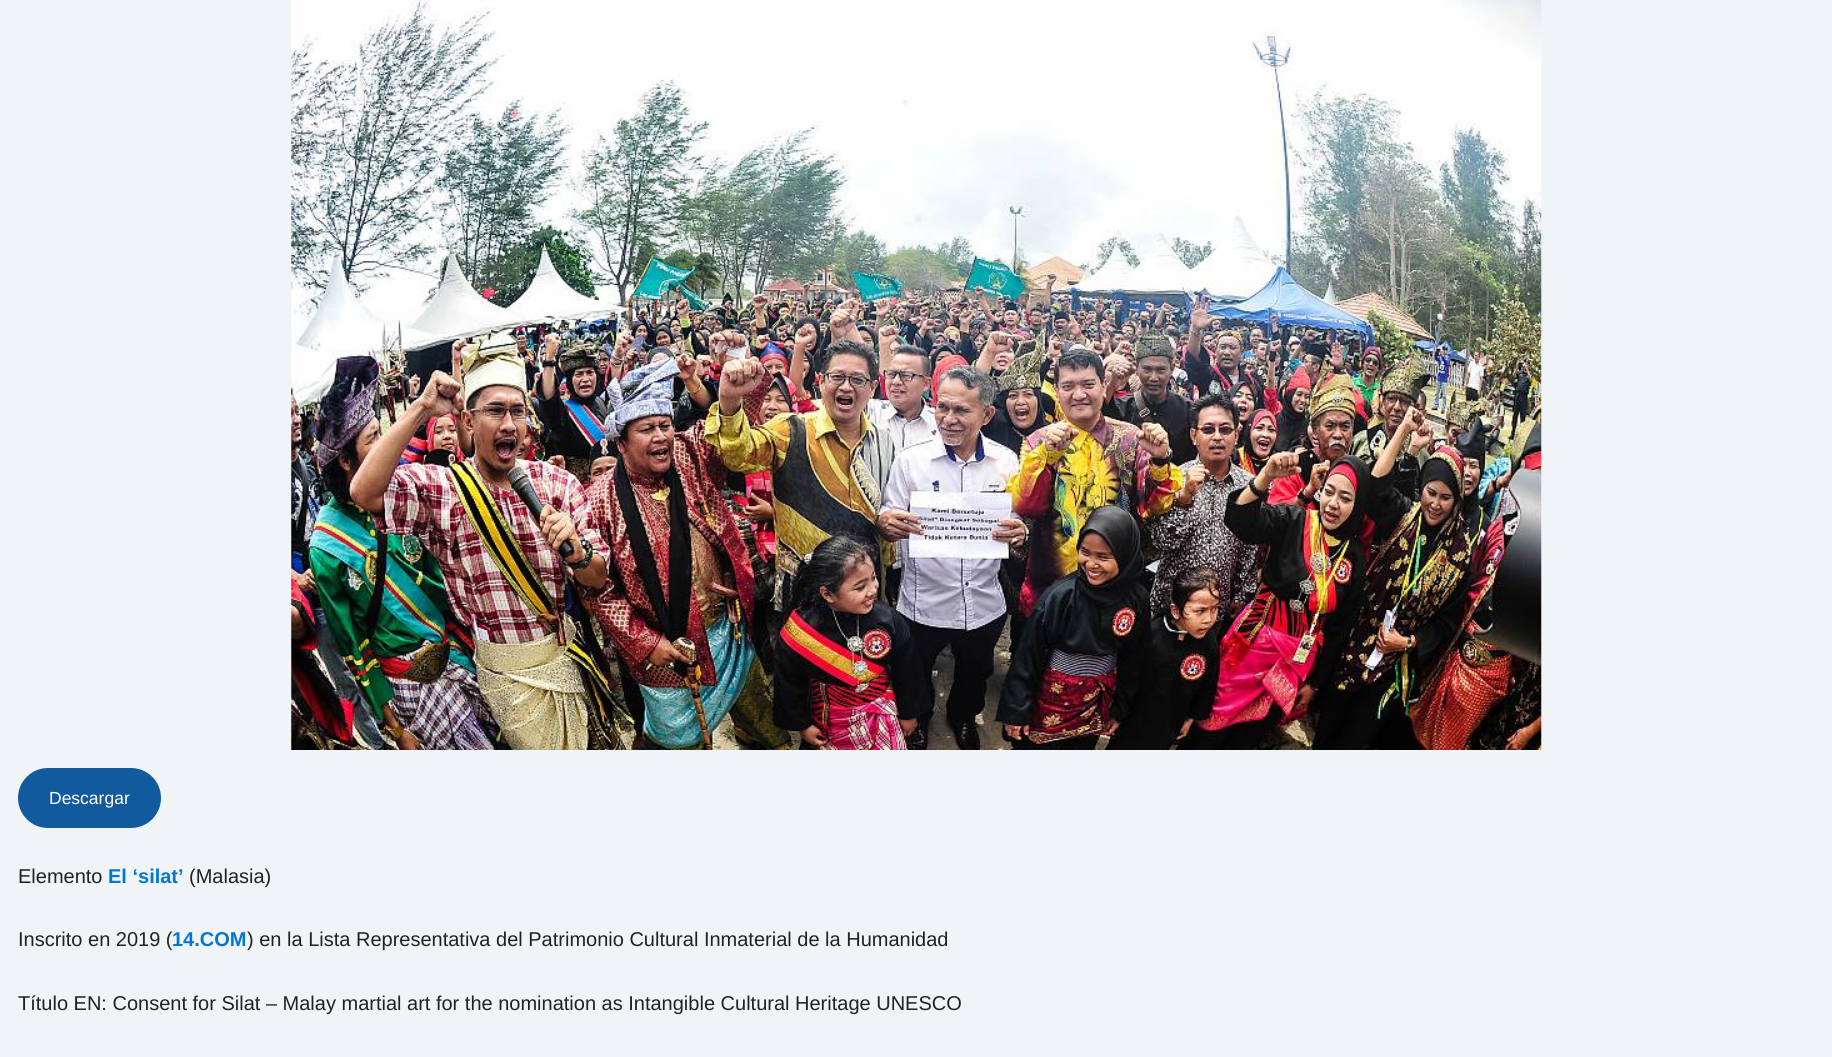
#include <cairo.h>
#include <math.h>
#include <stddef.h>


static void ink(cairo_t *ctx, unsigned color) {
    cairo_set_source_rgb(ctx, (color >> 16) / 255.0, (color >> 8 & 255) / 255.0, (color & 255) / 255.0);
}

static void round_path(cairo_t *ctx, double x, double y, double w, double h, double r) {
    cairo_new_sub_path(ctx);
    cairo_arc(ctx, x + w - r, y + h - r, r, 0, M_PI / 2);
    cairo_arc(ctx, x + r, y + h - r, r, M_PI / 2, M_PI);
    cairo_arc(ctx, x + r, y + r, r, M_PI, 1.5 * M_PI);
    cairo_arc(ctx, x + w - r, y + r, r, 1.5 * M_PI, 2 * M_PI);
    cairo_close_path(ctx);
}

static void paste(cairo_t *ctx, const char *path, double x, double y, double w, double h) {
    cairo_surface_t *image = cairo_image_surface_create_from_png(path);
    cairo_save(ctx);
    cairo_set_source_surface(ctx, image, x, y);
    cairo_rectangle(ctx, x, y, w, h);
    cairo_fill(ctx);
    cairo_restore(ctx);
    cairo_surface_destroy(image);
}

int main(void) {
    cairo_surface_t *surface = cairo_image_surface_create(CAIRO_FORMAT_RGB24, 1832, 1057);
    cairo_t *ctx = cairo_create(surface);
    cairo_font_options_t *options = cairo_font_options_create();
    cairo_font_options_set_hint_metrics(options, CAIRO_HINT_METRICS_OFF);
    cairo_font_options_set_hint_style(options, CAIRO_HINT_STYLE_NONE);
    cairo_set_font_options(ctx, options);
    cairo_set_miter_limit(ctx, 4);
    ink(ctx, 0xF1F4F6);
    cairo_paint(ctx);
    paste(ctx, "media/1.png", 291, 0, 1251, 750);
    ink(ctx, 0x115A9E);
    round_path(ctx, 18, 768, 143, 60, 30);
    cairo_fill(ctx);
    cairo_select_font_face(ctx, "Liberation Sans", CAIRO_FONT_SLANT_NORMAL, CAIRO_FONT_WEIGHT_NORMAL);
    cairo_set_font_size(ctx, 17.5);
    ink(ctx, 0xFFFFFF);
    cairo_move_to(ctx, 49, 804);
    cairo_show_text(ctx, "Descargar");
    cairo_set_font_size(ctx, 20);
    ink(ctx, 0x212121);
    cairo_move_to(ctx, 18, 883);
    cairo_show_text(ctx, "Elemento");
    cairo_select_font_face(ctx, "Liberation Sans", CAIRO_FONT_SLANT_NORMAL, CAIRO_FONT_WEIGHT_BOLD);
    ink(ctx, 0x0077D4);
    cairo_move_to(ctx, 108, 883);
    cairo_show_text(ctx, "El ‘silat’");
    cairo_select_font_face(ctx, "Liberation Sans", CAIRO_FONT_SLANT_NORMAL, CAIRO_FONT_WEIGHT_NORMAL);
    ink(ctx, 0x212121);
    cairo_move_to(ctx, 189, 883);
    cairo_show_text(ctx, "(Malasia)");
    cairo_move_to(ctx, 18, 946);
    cairo_show_text(ctx, "Inscrito en 2019 (");
    cairo_select_font_face(ctx, "Liberation Sans", CAIRO_FONT_SLANT_NORMAL, CAIRO_FONT_WEIGHT_BOLD);
    ink(ctx, 0x0077D4);
    cairo_move_to(ctx, 172, 946);
    cairo_show_text(ctx, "14.COM");
    cairo_select_font_face(ctx, "Liberation Sans", CAIRO_FONT_SLANT_NORMAL, CAIRO_FONT_WEIGHT_NORMAL);
    ink(ctx, 0x212121);
    cairo_move_to(ctx, 247, 946);
    cairo_show_text(ctx, ") en la Lista Representativa del Patrimonio Cultural Inmaterial de la Humanidad");
    cairo_move_to(ctx, 18, 1010);
    cairo_show_text(ctx, "Título EN: Consent for Silat – Malay martial art for the nomination as Intangible Cultural Heritage UNESCO");
    cairo_surface_write_to_png(surface, "image.png");
    cairo_font_options_destroy(options);
    cairo_destroy(ctx);
    cairo_surface_destroy(surface);
    return 0;
}
